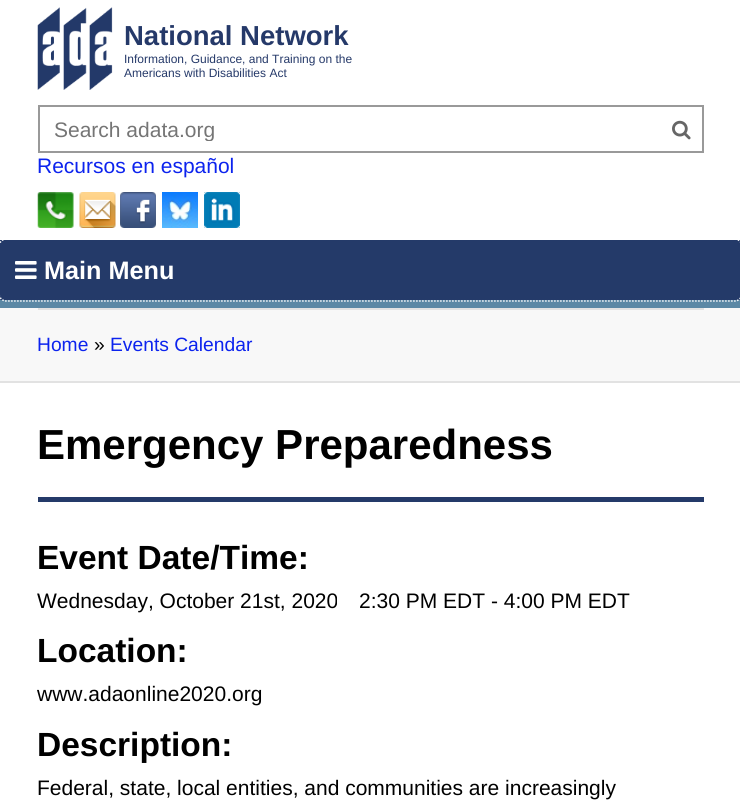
#include <cairo.h>
#include <math.h>
#include <stddef.h>

typedef struct { double x, y, w, h; unsigned color; } box_t;

static void ink(cairo_t *ctx, unsigned color) {
    cairo_set_source_rgb(ctx, (color >> 16) / 255.0, (color >> 8 & 255) / 255.0, (color & 255) / 255.0);
}

static void paste(cairo_t *ctx, const char *path, double x, double y, double w, double h) {
    cairo_surface_t *image = cairo_image_surface_create_from_png(path);
    cairo_save(ctx);
    cairo_set_source_surface(ctx, image, x, y);
    cairo_rectangle(ctx, x, y, w, h);
    cairo_fill(ctx);
    cairo_restore(ctx);
    cairo_surface_destroy(image);
}

int main(void) {
    cairo_surface_t *surface = cairo_image_surface_create(CAIRO_FORMAT_RGB24, 740, 801);
    cairo_t *ctx = cairo_create(surface);
    cairo_font_options_t *options = cairo_font_options_create();
    cairo_font_options_set_hint_metrics(options, CAIRO_HINT_METRICS_OFF);
    cairo_font_options_set_hint_style(options, CAIRO_HINT_STYLE_NONE);
    cairo_set_font_options(ctx, options);
    cairo_set_miter_limit(ctx, 4);
    ink(ctx, 0xFFFFFF);
    cairo_paint(ctx);
    paste(ctx, "media/1.png", 37, 7, 76, 83);
    cairo_select_font_face(ctx, "Liberation Sans", CAIRO_FONT_SLANT_NORMAL, CAIRO_FONT_WEIGHT_BOLD);
    cairo_set_font_size(ctx, 27.5);
    ink(ctx, 0x253969);
    cairo_move_to(ctx, 124, 45);
    cairo_show_text(ctx, "National Network");
    cairo_select_font_face(ctx, "Liberation Sans", CAIRO_FONT_SLANT_NORMAL, CAIRO_FONT_WEIGHT_NORMAL);
    cairo_set_font_size(ctx, 12);
    cairo_move_to(ctx, 124, 63);
    cairo_show_text(ctx, "Information, Guidance, and Training on the");
    cairo_move_to(ctx, 124, 77);
    cairo_show_text(ctx, "Americans with Disabilities Act");
    cairo_rectangle(ctx, 39, 106, 664, 46);
    ink(ctx, 0x999999);
    cairo_stroke(ctx);
    cairo_save(ctx);
    cairo_rectangle(ctx, 39, 117, 663, 24);
    cairo_clip(ctx);
    cairo_set_font_size(ctx, 21);
    ink(ctx, 0x757575);
    cairo_move_to(ctx, 54, 137);
    cairo_show_text(ctx, "Search adata.org");
    cairo_restore(ctx);
    paste(ctx, "media/2.png", 672, 120, 19, 20);
    cairo_set_font_size(ctx, 21);
    ink(ctx, 0x0C23EE);
    cairo_move_to(ctx, 37, 173);
    cairo_show_text(ctx, "Recursos en español");
    paste(ctx, "media/3.png", 37, 192, 37, 36);
    paste(ctx, "media/4.png", 79, 192, 37, 36);
    paste(ctx, "media/5.png", 120, 192, 36, 36);
    paste(ctx, "media/6.png", 162, 192, 36, 36);
    paste(ctx, "media/7.png", 204, 192, 36, 36);
    ink(ctx, 0x5B88A5);
    cairo_rectangle(ctx, 0, 300, 740, 8);
    cairo_fill(ctx);
    ink(ctx, 0x243A69);
    cairo_rectangle(ctx, 0, 240, 740, 60);
    cairo_fill(ctx);
    paste(ctx, "media/8.png", 15, 261, 22, 18);
    cairo_new_path(ctx);
    cairo_move_to(ctx, 6, 239);
    cairo_line_to(ctx, 735, 239);
    cairo_curve_to(ctx, 738.5, 239, 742, 242.5, 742, 246);
    cairo_line_to(ctx, 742, 294);
    cairo_curve_to(ctx, 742, 297.5, 738.5, 301, 735, 301);
    cairo_line_to(ctx, 6, 301);
    cairo_curve_to(ctx, 2.5, 301, -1, 297.5, -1, 294);
    cairo_line_to(ctx, -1, 246);
    cairo_curve_to(ctx, -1, 242.5, 2.5, 239, 6, 239);
    cairo_close_path(ctx);
    ink(ctx, 0xFFFFFF);
    cairo_set_line_width(ctx, 1.5);
    cairo_set_dash(ctx, (double[]){1.5, 1.5}, 2, 0);
    cairo_stroke(ctx);
    cairo_select_font_face(ctx, "Liberation Sans", CAIRO_FONT_SLANT_NORMAL, CAIRO_FONT_WEIGHT_BOLD);
    cairo_set_font_size(ctx, 25.25);
    cairo_move_to(ctx, 44, 279);
    cairo_show_text(ctx, "Main Menu");
    {
        static const box_t items[] = {
            {0, 308, 740, 73, 0xF8F8F8},
            {0, 381, 740, 2, 0xE2E2E2},
            {38, 308, 666, 2, 0xE2E2E2},
        };
        for (size_t i = 0; i < sizeof items / sizeof *items; i++) {
            ink(ctx, items[i].color);
            cairo_rectangle(ctx, items[i].x, items[i].y, items[i].w, items[i].h);
            cairo_fill(ctx);
        }
    }
    cairo_select_font_face(ctx, "Liberation Sans", CAIRO_FONT_SLANT_NORMAL, CAIRO_FONT_WEIGHT_NORMAL);
    cairo_set_font_size(ctx, 19.25);
    ink(ctx, 0x0C23EE);
    cairo_move_to(ctx, 37, 351);
    cairo_show_text(ctx, "Home");
    ink(ctx, 0x000000);
    cairo_move_to(ctx, 94, 351);
    cairo_show_text(ctx, "»");
    ink(ctx, 0x0C23EE);
    cairo_move_to(ctx, 110, 351);
    cairo_show_text(ctx, "Events Calendar");
    ink(ctx, 0x243A69);
    cairo_rectangle(ctx, 38, 497, 666, 5);
    cairo_fill(ctx);
    cairo_select_font_face(ctx, "Liberation Sans", CAIRO_FONT_SLANT_NORMAL, CAIRO_FONT_WEIGHT_BOLD);
    cairo_set_font_size(ctx, 42);
    ink(ctx, 0x000000);
    cairo_move_to(ctx, 37, 459);
    cairo_show_text(ctx, "Emergency Preparedness");
    cairo_set_font_size(ctx, 33.5);
    cairo_move_to(ctx, 37, 569);
    cairo_show_text(ctx, "Event Date/Time:");
    cairo_select_font_face(ctx, "Liberation Sans", CAIRO_FONT_SLANT_NORMAL, CAIRO_FONT_WEIGHT_NORMAL);
    cairo_set_font_size(ctx, 21);
    cairo_move_to(ctx, 37, 608);
    cairo_show_text(ctx, "Wednesday, October 21st, 2020");
    cairo_move_to(ctx, 359, 608);
    cairo_show_text(ctx, "2:30 PM EDT - 4:00 PM EDT");
    cairo_select_font_face(ctx, "Liberation Sans", CAIRO_FONT_SLANT_NORMAL, CAIRO_FONT_WEIGHT_BOLD);
    cairo_set_font_size(ctx, 33.5);
    cairo_move_to(ctx, 37, 662);
    cairo_show_text(ctx, "Location:");
    cairo_select_font_face(ctx, "Liberation Sans", CAIRO_FONT_SLANT_NORMAL, CAIRO_FONT_WEIGHT_NORMAL);
    cairo_set_font_size(ctx, 21);
    cairo_move_to(ctx, 37, 701);
    cairo_show_text(ctx, "www.adaonline2020.org");
    cairo_select_font_face(ctx, "Liberation Sans", CAIRO_FONT_SLANT_NORMAL, CAIRO_FONT_WEIGHT_BOLD);
    cairo_set_font_size(ctx, 33.5);
    cairo_move_to(ctx, 37, 756);
    cairo_show_text(ctx, "Description:");
    cairo_select_font_face(ctx, "Liberation Sans", CAIRO_FONT_SLANT_NORMAL, CAIRO_FONT_WEIGHT_NORMAL);
    cairo_set_font_size(ctx, 21);
    cairo_move_to(ctx, 37, 795);
    cairo_show_text(ctx, "Federal, state, local entities, and communities are increasingly");
    cairo_surface_write_to_png(surface, "image.png");
    cairo_font_options_destroy(options);
    cairo_destroy(ctx);
    cairo_surface_destroy(surface);
    return 0;
}
